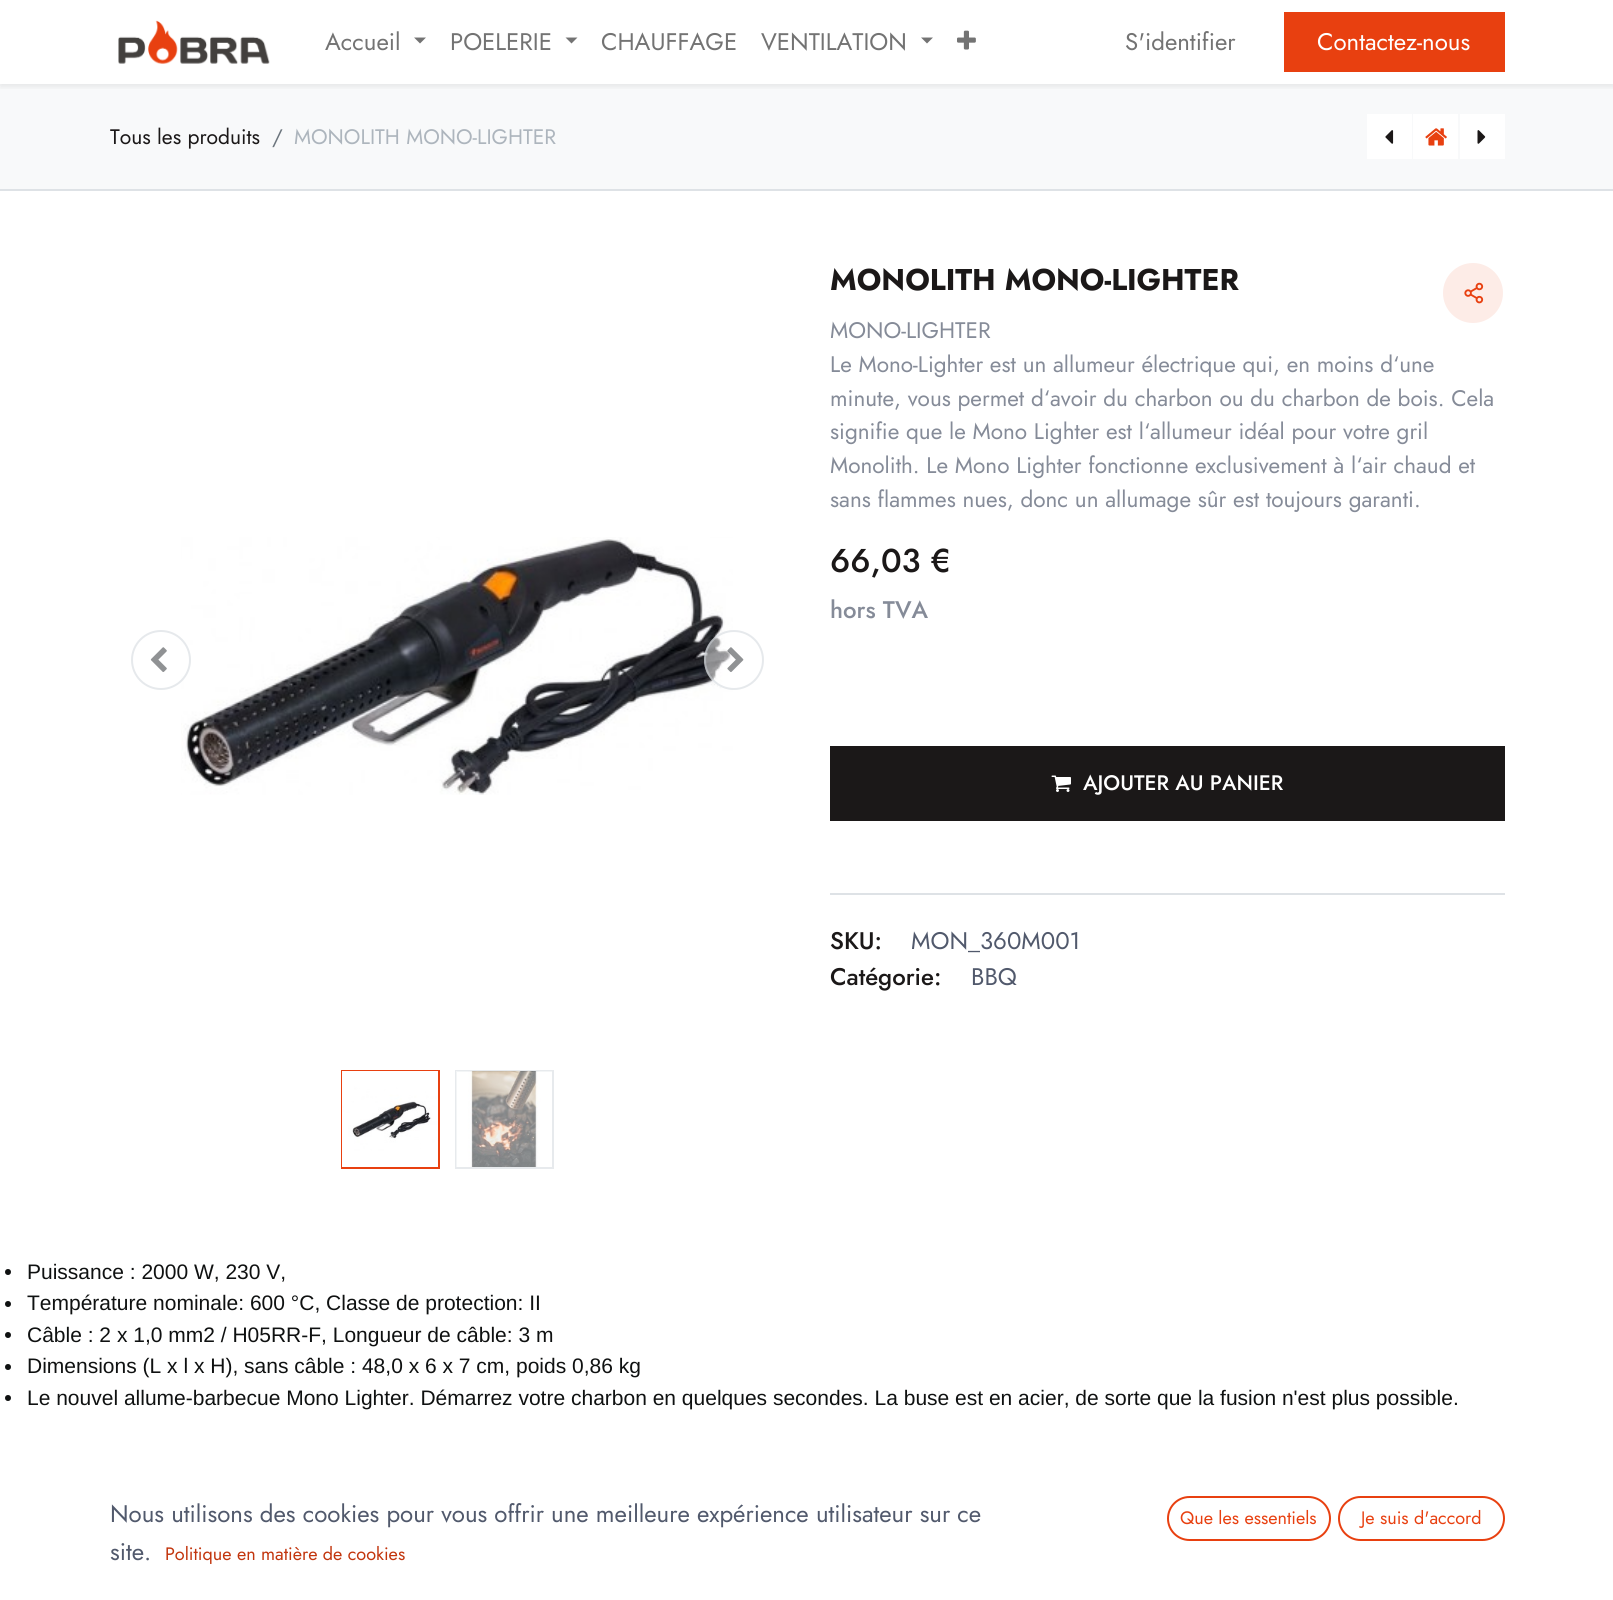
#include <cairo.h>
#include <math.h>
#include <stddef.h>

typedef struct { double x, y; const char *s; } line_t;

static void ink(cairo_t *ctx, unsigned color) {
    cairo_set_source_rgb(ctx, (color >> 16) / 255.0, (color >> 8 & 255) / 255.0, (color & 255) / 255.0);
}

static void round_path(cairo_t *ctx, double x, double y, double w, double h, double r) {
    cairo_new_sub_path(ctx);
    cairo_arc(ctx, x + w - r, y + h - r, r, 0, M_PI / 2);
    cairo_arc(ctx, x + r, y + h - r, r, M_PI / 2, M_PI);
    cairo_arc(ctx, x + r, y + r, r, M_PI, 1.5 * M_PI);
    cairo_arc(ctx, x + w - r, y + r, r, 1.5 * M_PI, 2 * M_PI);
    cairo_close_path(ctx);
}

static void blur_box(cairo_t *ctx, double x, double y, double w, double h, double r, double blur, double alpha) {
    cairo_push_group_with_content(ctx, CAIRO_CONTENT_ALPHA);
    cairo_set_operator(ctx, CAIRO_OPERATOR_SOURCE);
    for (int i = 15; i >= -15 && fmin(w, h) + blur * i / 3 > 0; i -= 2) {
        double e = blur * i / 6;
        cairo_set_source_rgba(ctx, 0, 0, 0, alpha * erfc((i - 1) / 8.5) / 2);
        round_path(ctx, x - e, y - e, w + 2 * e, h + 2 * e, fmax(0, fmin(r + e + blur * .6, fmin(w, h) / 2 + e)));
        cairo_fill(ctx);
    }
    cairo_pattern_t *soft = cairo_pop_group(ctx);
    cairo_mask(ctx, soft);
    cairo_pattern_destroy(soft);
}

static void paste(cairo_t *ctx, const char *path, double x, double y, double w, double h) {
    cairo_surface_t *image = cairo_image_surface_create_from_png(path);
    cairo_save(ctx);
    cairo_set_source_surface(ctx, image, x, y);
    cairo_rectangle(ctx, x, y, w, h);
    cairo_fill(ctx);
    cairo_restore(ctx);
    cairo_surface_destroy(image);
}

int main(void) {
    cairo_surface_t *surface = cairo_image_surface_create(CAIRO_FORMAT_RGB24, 1613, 1600);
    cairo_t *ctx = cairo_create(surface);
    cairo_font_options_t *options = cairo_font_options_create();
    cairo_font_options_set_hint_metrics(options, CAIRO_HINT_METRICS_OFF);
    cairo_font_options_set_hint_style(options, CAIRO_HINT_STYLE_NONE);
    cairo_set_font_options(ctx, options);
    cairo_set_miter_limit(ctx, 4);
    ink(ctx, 0xFFFFFF);
    cairo_paint(ctx);
    ink(ctx, 0xF8F9FA);
    cairo_rectangle(ctx, 0, 84, 1613, 105);
    cairo_fill(ctx);
    cairo_save(ctx);
    cairo_rectangle(ctx, 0, 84, 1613, 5);
    cairo_clip(ctx);
    ink(ctx, 0x000000);
    blur_box(ctx, 0, 3, 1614, 84, 0, 3, 0.07);
    cairo_restore(ctx);
    paste(ctx, "media/1.png", 118, 20, 152, 44);
    cairo_select_font_face(ctx, "Jost", CAIRO_FONT_SLANT_NORMAL, CAIRO_FONT_WEIGHT_NORMAL);
    cairo_set_font_size(ctx, 24);
    ink(ctx, 0x737373);
    cairo_move_to(ctx, 325, 50);
    cairo_show_text(ctx, "Accueil");
    cairo_new_path(ctx);
    cairo_move_to(ctx, 414, 37.5);
    cairo_line_to(ctx, 426, 37.5);
    cairo_line_to(ctx, 420, 43.5);
    cairo_close_path(ctx);
    cairo_fill(ctx);
    cairo_move_to(ctx, 450, 50);
    cairo_show_text(ctx, "POELERIE");
    cairo_new_path(ctx);
    cairo_move_to(ctx, 565.5, 37.5);
    cairo_line_to(ctx, 577.5, 37.5);
    cairo_line_to(ctx, 571.5, 43.5);
    cairo_close_path(ctx);
    cairo_fill(ctx);
    cairo_move_to(ctx, 601, 50);
    cairo_show_text(ctx, "CHAUFFAGE");
    cairo_move_to(ctx, 761, 50);
    cairo_show_text(ctx, "VENTILATION");
    cairo_new_path(ctx);
    cairo_move_to(ctx, 921, 37.5);
    cairo_line_to(ctx, 933, 37.5);
    cairo_line_to(ctx, 927, 43.5);
    cairo_close_path(ctx);
    cairo_fill(ctx);
    paste(ctx, "media/2.png", 957, 30, 19, 20);
    cairo_move_to(ctx, 1125, 50);
    cairo_show_text(ctx, "S'identifier");
    ink(ctx, 0xE84010);
    cairo_rectangle(ctx, 1284, 12, 221, 60);
    cairo_fill(ctx);
    ink(ctx, 0xFFFFFF);
    cairo_move_to(ctx, 1317, 50);
    cairo_show_text(ctx, "Contactez-nous");
    ink(ctx, 0xDEE2E6);
    cairo_rectangle(ctx, 0, 189, 1613, 2);
    cairo_fill(ctx);
    cairo_set_font_size(ctx, 21);
    ink(ctx, 0x1B1818);
    cairo_move_to(ctx, 110, 144);
    cairo_show_text(ctx, "Tous les produits");
    ink(ctx, 0x6C757D);
    cairo_move_to(ctx, 272, 144);
    cairo_show_text(ctx, "/");
    ink(ctx, 0xADB5BD);
    cairo_move_to(ctx, 294, 144);
    cairo_show_text(ctx, "MONOLITH MONO-LIGHTER");
    ink(ctx, 0xFFFFFF);
    cairo_rectangle(ctx, 1367, 114, 45, 45);
    cairo_fill(ctx);
    paste(ctx, "media/3.png", 1385, 130, 9, 14);
    cairo_rectangle(ctx, 1413, 114, 45, 45);
    cairo_fill(ctx);
    paste(ctx, "media/4.png", 1425, 128, 22, 18);
    cairo_rectangle(ctx, 1460, 114, 45, 45);
    cairo_fill(ctx);
    paste(ctx, "media/5.png", 1477, 130, 9, 14);
    paste(ctx, "media/7.png", 181, 537, 552, 258);
    cairo_arc(ctx, 161, 660, 29, 0, 2 * M_PI);
    ink(ctx, 0xE6E9EC);
    cairo_stroke(ctx);
    paste(ctx, "media/6.png", 150, 647, 17, 25);
    cairo_set_source_rgba(ctx, 1, 1, 1, 0.5);
    cairo_arc(ctx, 734, 660, 30, 0, 2 * M_PI);
    cairo_fill(ctx);
    cairo_arc(ctx, 734, 660, 29, 0, 2 * M_PI);
    cairo_set_source_rgba(ctx, 0.808, 0.831, 0.855, 0.5);
    cairo_stroke(ctx);
    paste(ctx, "media/8.png", 727, 647, 17, 25);
    cairo_rectangle(ctx, 342, 1071, 97, 97);
    ink(ctx, 0xE84010);
    cairo_stroke(ctx);
    paste(ctx, "media/9.png", 342, 1071, 96, 96);
    cairo_rectangle(ctx, 456, 1071, 97, 97);
    ink(ctx, 0xE7EAED);
    cairo_stroke(ctx);
    paste(ctx, "media/10.png", 456, 1071, 96, 96);
    cairo_select_font_face(ctx, "Jost", CAIRO_FONT_SLANT_NORMAL, CAIRO_FONT_WEIGHT_BOLD);
    cairo_set_font_size(ctx, 30);
    ink(ctx, 0x1B1818);
    cairo_move_to(ctx, 830, 290);
    cairo_show_text(ctx, "MONOLITH MONO-LIGHTER");
    ink(ctx, 0xFDECE7);
    cairo_new_path(ctx);
    cairo_arc(ctx, 1473, 293, 30, 0, 2 * M_PI);
    cairo_fill(ctx);
    paste(ctx, "media/11.png", 1464, 282, 20, 22);
    cairo_select_font_face(ctx, "Jost", CAIRO_FONT_SLANT_NORMAL, CAIRO_FONT_WEIGHT_NORMAL);
    cairo_set_font_size(ctx, 22.5);
    ink(ctx, 0x858B98);
    {
        static const line_t items[] = {
            {830, 338, "MONO-LIGHTER"},
            {830, 372, "Le Mono-Lighter est un allumeur électrique qui, en moins d‘une"},
            {830, 406, "minute, vous permet d‘avoir du charbon ou du charbon de bois. Cela"},
            {830, 439, "signifie que le Mono Lighter est l‘allumeur idéal pour votre gril"},
            {830, 473, "Monolith. Le Mono Lighter fonctionne exclusivement à l‘air chaud et"},
            {830, 507, "sans flammes nues, donc un allumage sûr est toujours garanti."},
        };
        for (size_t i = 0; i < sizeof items / sizeof *items; i++) {
            cairo_move_to(ctx, items[i].x, items[i].y);
            cairo_show_text(ctx, items[i].s);
        }
    }
    cairo_select_font_face(ctx, "Jost Medium", CAIRO_FONT_SLANT_NORMAL, CAIRO_FONT_WEIGHT_NORMAL);
    cairo_set_font_size(ctx, 33);
    ink(ctx, 0x1B1818);
    cairo_move_to(ctx, 830, 572);
    cairo_show_text(ctx, "66,03 €");
    cairo_set_font_size(ctx, 24);
    ink(ctx, 0x858B98);
    cairo_move_to(ctx, 830, 618);
    cairo_show_text(ctx, "hors TVA");
    ink(ctx, 0x1B1818);
    cairo_rectangle(ctx, 830, 746, 675, 75);
    cairo_fill(ctx);
    paste(ctx, "media/12.png", 1051, 775, 20, 17);
    cairo_set_font_size(ctx, 21);
    ink(ctx, 0xFFFFFF);
    cairo_move_to(ctx, 1083, 790);
    cairo_show_text(ctx, "AJOUTER AU PANIER");
    ink(ctx, 0xDEE2E6);
    cairo_rectangle(ctx, 830, 893, 675, 2);
    cairo_fill(ctx);
    cairo_set_font_size(ctx, 24);
    ink(ctx, 0x1B1818);
    cairo_move_to(ctx, 830, 949);
    cairo_show_text(ctx, "SKU:");
    cairo_select_font_face(ctx, "Jost", CAIRO_FONT_SLANT_NORMAL, CAIRO_FONT_WEIGHT_NORMAL);
    ink(ctx, 0x51596C);
    cairo_move_to(ctx, 911, 949);
    cairo_show_text(ctx, "MON_360M001");
    cairo_select_font_face(ctx, "Jost Medium", CAIRO_FONT_SLANT_NORMAL, CAIRO_FONT_WEIGHT_NORMAL);
    ink(ctx, 0x1B1818);
    cairo_move_to(ctx, 830, 985);
    cairo_show_text(ctx, "Catégorie:");
    cairo_select_font_face(ctx, "Jost", CAIRO_FONT_SLANT_NORMAL, CAIRO_FONT_WEIGHT_NORMAL);
    ink(ctx, 0x51596C);
    cairo_move_to(ctx, 971, 985);
    cairo_show_text(ctx, "BBQ");
    ink(ctx, 0x0F1111);
    cairo_new_path(ctx);
    cairo_arc(ctx, 8, 1272, 3, 0, 2 * M_PI);
    cairo_fill(ctx);
    cairo_select_font_face(ctx, "Liberation Sans", CAIRO_FONT_SLANT_NORMAL, CAIRO_FONT_WEIGHT_NORMAL);
    cairo_set_font_size(ctx, 21);
    cairo_move_to(ctx, 27, 1279);
    cairo_show_text(ctx, "Puissance : 2000 W, 230 V,");
    cairo_new_path(ctx);
    cairo_arc(ctx, 8, 1304, 3, 0, 2 * M_PI);
    cairo_fill(ctx);
    cairo_move_to(ctx, 27, 1310);
    cairo_show_text(ctx, "Température nominale: 600 °C, Classe de protection: II");
    cairo_new_path(ctx);
    cairo_arc(ctx, 8, 1335, 3, 0, 2 * M_PI);
    cairo_fill(ctx);
    cairo_move_to(ctx, 27, 1342);
    cairo_show_text(ctx, "Câble : 2 x 1,0 mm2 / H05RR-F, Longueur de câble: 3 m");
    cairo_new_path(ctx);
    cairo_arc(ctx, 8, 1367, 3, 0, 2 * M_PI);
    cairo_fill(ctx);
    cairo_move_to(ctx, 27, 1373);
    cairo_show_text(ctx, "Dimensions (L x l x H), sans câble : 48,0 x 6 x 7 cm, poids 0,86 kg");
    cairo_new_path(ctx);
    cairo_arc(ctx, 8, 1398, 3, 0, 2 * M_PI);
    cairo_fill(ctx);
    cairo_move_to(ctx, 27, 1405);
    cairo_show_text(ctx, "Le nouvel allume-barbecue Mono Lighter. Démarrez votre charbon en quelques secondes. La buse est en acier, de sorte que la fusion n'est plus possible.");
    cairo_select_font_face(ctx, "Jost", CAIRO_FONT_SLANT_NORMAL, CAIRO_FONT_WEIGHT_NORMAL);
    cairo_set_font_size(ctx, 24);
    ink(ctx, 0x51596C);
    cairo_move_to(ctx, 110, 1522);
    cairo_show_text(ctx, "Nous utilisons des cookies pour vous offrir une meilleure expérience utilisateur sur ce");
    cairo_move_to(ctx, 110, 1560);
    cairo_show_text(ctx, "site.");
    cairo_set_font_size(ctx, 18);
    ink(ctx, 0xC2350D);
    cairo_move_to(ctx, 165, 1560);
    cairo_show_text(ctx, "Politique en matière de cookies");
    round_path(ctx, 1168, 1497, 162, 43, 21.5);
    ink(ctx, 0xE84010);
    cairo_stroke(ctx);
    cairo_move_to(ctx, 1180, 1524);
    cairo_show_text(ctx, "Que les essentiels");
    round_path(ctx, 1339, 1497, 165, 43, 21.5);
    cairo_stroke(ctx);
    cairo_move_to(ctx, 1361, 1524);
    cairo_show_text(ctx, "Je suis d'accord");
    cairo_surface_write_to_png(surface, "image.png");
    cairo_font_options_destroy(options);
    cairo_destroy(ctx);
    cairo_surface_destroy(surface);
    return 0;
}
